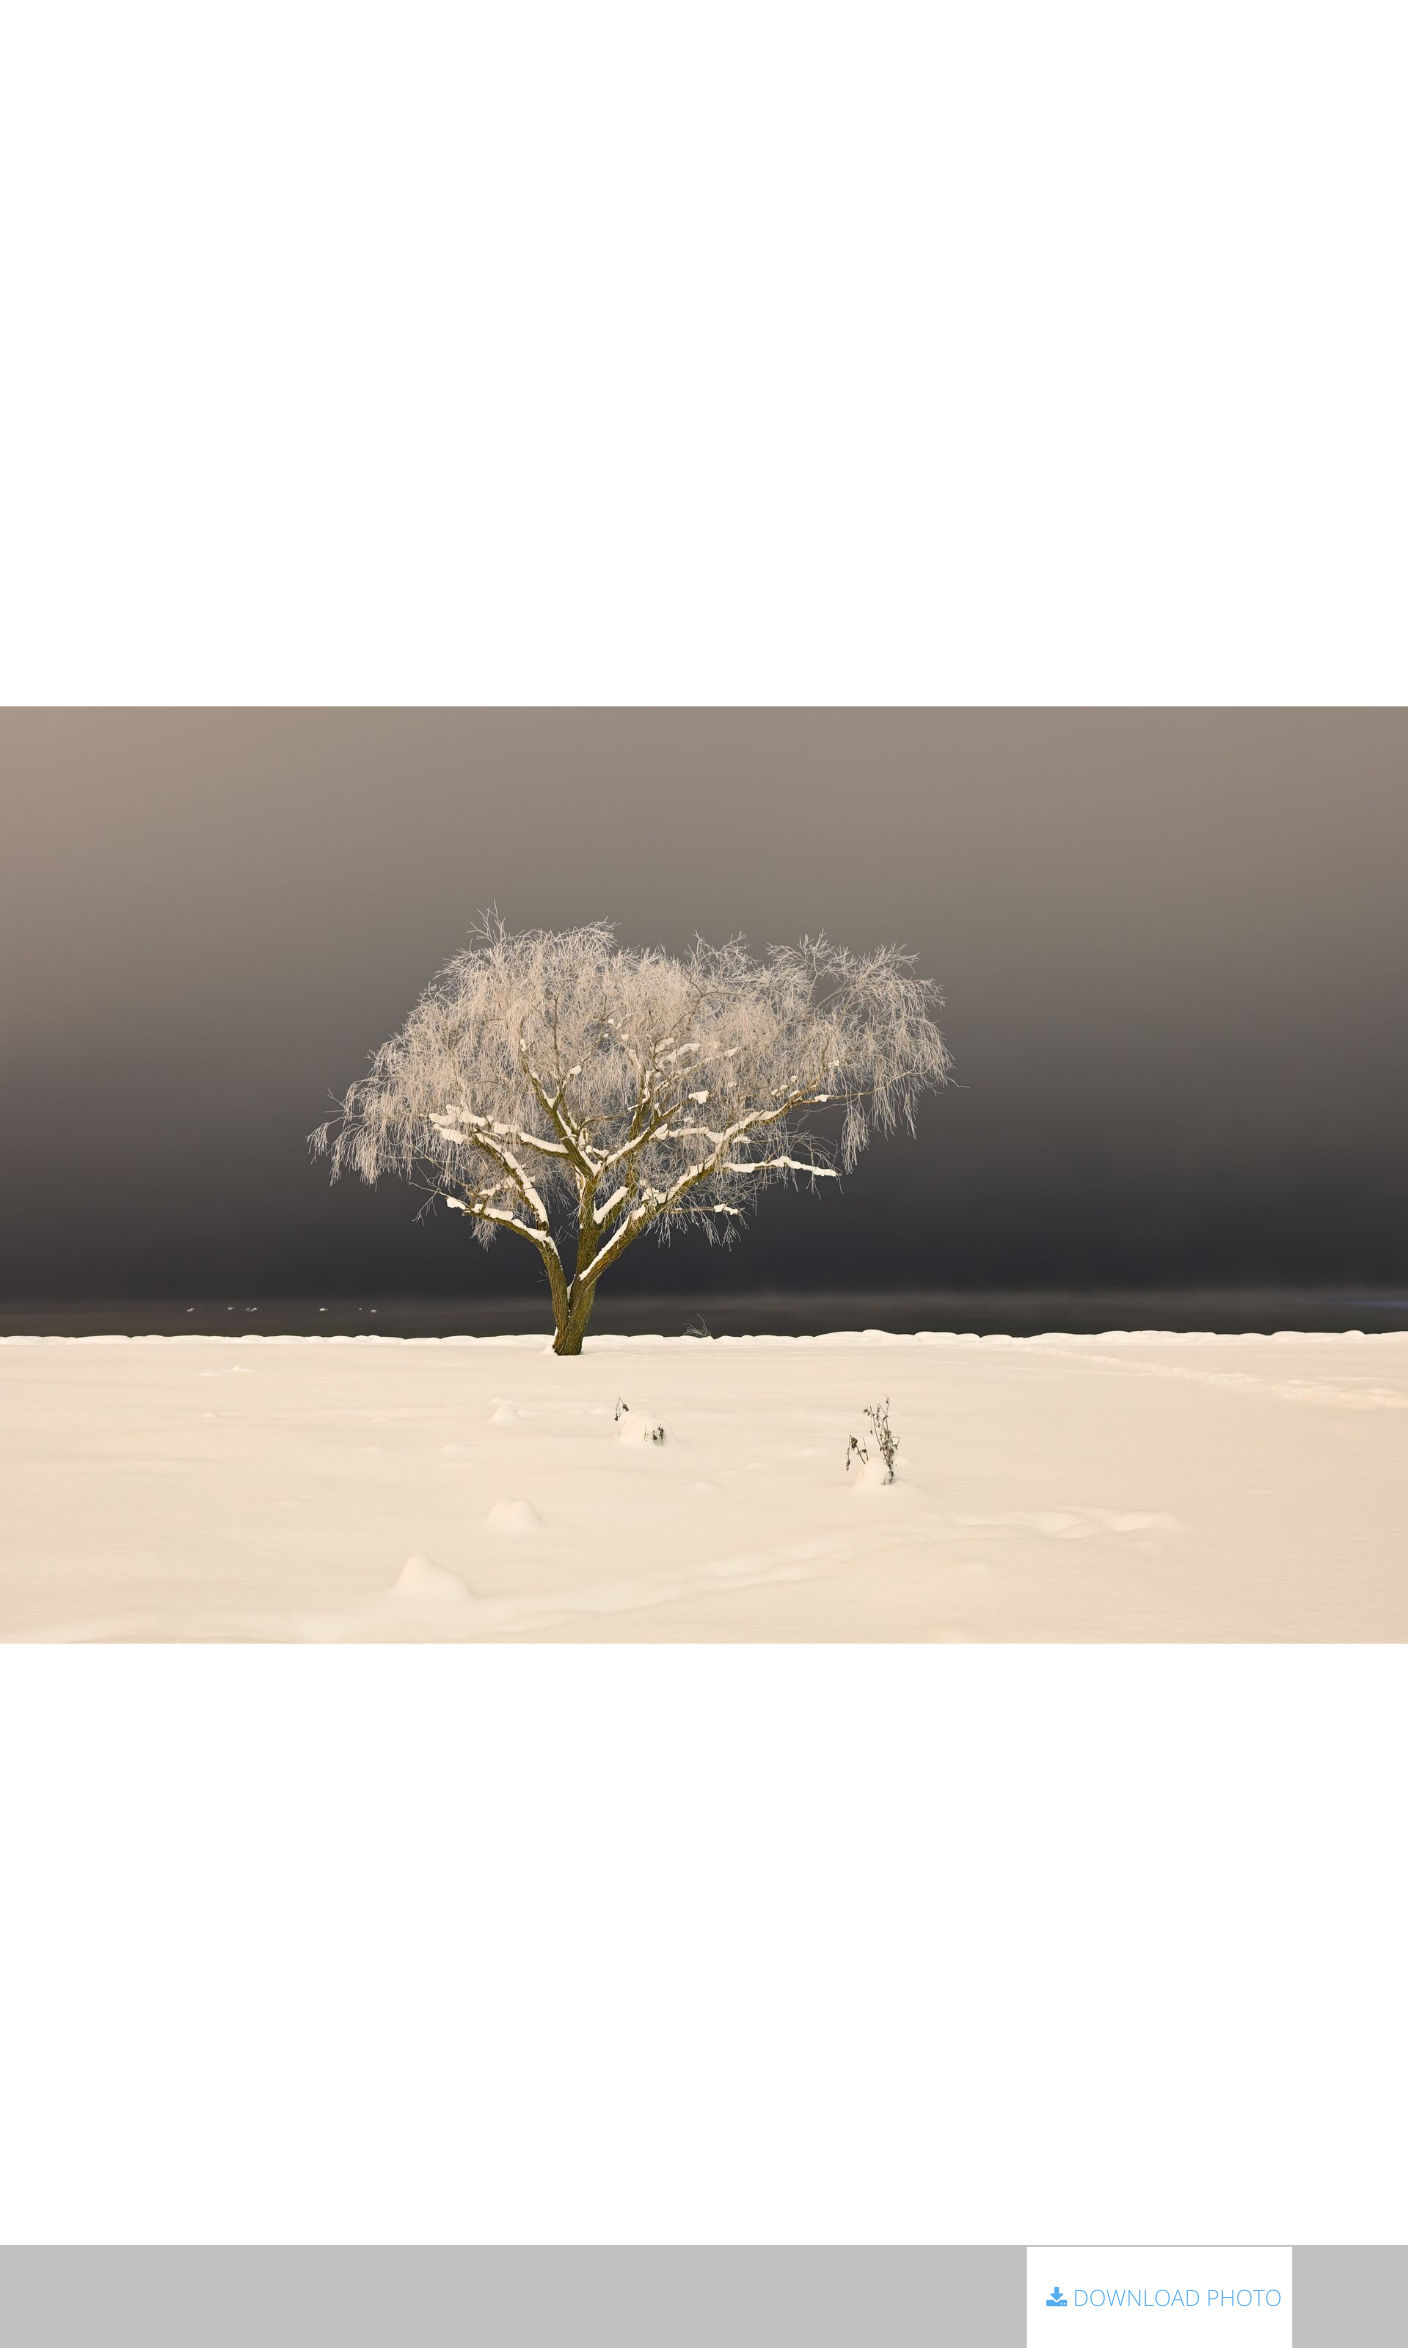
#include <cairo.h>
#include <math.h>
#include <stddef.h>


static void ink(cairo_t *ctx, unsigned color) {
    cairo_set_source_rgb(ctx, (color >> 16) / 255.0, (color >> 8 & 255) / 255.0, (color & 255) / 255.0);
}

static void paste(cairo_t *ctx, const char *path, double x, double y, double w, double h) {
    cairo_surface_t *image = cairo_image_surface_create_from_png(path);
    cairo_save(ctx);
    cairo_set_source_surface(ctx, image, x, y);
    cairo_rectangle(ctx, x, y, w, h);
    cairo_fill(ctx);
    cairo_restore(ctx);
    cairo_surface_destroy(image);
}

int main(void) {
    cairo_surface_t *surface = cairo_image_surface_create(CAIRO_FORMAT_RGB24, 1408, 2348);
    cairo_t *ctx = cairo_create(surface);
    cairo_font_options_t *options = cairo_font_options_create();
    cairo_font_options_set_hint_metrics(options, CAIRO_HINT_METRICS_OFF);
    cairo_font_options_set_hint_style(options, CAIRO_HINT_STYLE_NONE);
    cairo_set_font_options(ctx, options);
    cairo_set_miter_limit(ctx, 4);
    ink(ctx, 0xFFFFFF);
    cairo_paint(ctx);
    paste(ctx, "media/1.png", 0, 706, 1408, 939);
    ink(ctx, 0xC0C0C0);
    cairo_rectangle(ctx, 0, 2245, 1408, 103);
    cairo_fill(ctx);
    ink(ctx, 0xFFFFFF);
    cairo_rectangle(ctx, 1026.5, 2246.5, 266, 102);
    cairo_fill_preserve(ctx);
    ink(ctx, 0xCCCCCC);
    cairo_set_line_width(ctx, 1);
    cairo_stroke(ctx);
    paste(ctx, "media/2.png", 1046, 2286, 22, 21);
    cairo_select_font_face(ctx, "Open Sans Light", CAIRO_FONT_SLANT_NORMAL, CAIRO_FONT_WEIGHT_NORMAL);
    cairo_set_font_size(ctx, 22.5);
    ink(ctx, 0x55ACEE);
    cairo_move_to(ctx, 1073, 2306);
    cairo_show_text(ctx, "DOWNLOAD PHOTO");
    cairo_surface_write_to_png(surface, "image.png");
    cairo_font_options_destroy(options);
    cairo_destroy(ctx);
    cairo_surface_destroy(surface);
    return 0;
}
